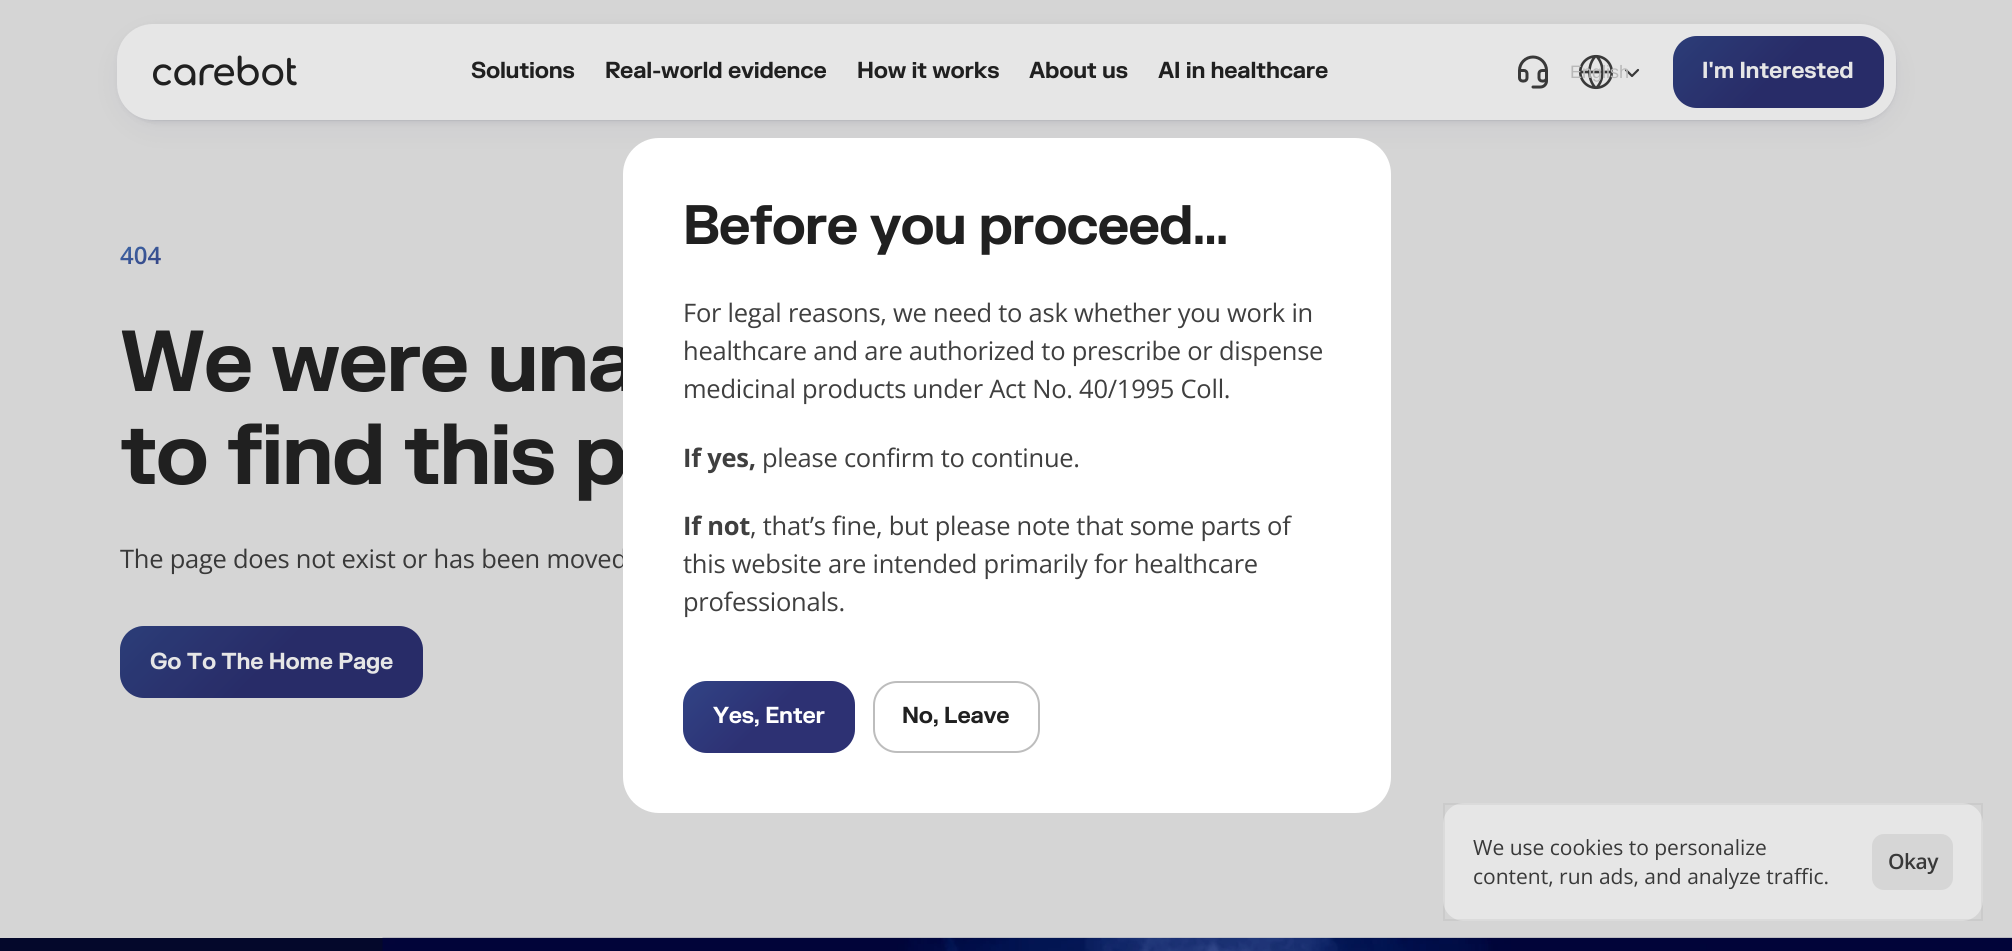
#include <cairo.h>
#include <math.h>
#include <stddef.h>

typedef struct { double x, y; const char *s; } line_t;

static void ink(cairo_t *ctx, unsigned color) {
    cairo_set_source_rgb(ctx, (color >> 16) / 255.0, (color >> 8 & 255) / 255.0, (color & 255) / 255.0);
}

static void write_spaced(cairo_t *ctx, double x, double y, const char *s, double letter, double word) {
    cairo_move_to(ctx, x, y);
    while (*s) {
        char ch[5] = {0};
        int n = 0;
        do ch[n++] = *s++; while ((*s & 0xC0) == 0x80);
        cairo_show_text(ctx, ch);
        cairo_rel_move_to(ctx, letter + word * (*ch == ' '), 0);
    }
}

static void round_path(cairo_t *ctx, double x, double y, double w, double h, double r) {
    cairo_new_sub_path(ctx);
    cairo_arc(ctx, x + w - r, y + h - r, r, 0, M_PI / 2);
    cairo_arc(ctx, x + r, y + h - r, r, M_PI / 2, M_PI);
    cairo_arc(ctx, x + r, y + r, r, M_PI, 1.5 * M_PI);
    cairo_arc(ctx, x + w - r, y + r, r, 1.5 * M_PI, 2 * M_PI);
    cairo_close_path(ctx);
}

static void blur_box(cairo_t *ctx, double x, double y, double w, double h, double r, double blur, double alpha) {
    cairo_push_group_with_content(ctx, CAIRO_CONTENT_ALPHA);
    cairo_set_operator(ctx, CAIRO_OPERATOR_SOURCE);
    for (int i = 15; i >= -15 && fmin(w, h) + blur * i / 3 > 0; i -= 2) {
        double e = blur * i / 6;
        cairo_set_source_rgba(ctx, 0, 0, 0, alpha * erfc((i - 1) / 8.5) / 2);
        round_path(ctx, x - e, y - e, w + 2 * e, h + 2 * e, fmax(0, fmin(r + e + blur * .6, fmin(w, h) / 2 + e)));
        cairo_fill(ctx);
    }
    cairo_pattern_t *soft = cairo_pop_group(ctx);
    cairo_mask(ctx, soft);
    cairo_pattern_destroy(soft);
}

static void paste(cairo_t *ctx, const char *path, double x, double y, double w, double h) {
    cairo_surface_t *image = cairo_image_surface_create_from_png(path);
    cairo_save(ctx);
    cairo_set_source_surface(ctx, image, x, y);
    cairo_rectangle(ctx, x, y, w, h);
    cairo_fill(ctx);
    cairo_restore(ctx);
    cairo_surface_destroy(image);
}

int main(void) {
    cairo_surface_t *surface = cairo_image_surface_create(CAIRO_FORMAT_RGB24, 2012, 951);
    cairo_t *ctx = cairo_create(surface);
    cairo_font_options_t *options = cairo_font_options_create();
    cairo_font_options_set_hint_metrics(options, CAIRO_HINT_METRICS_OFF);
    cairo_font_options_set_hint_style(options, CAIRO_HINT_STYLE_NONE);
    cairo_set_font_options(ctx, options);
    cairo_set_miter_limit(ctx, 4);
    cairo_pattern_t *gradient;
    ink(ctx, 0xD5D5D5);
    cairo_paint(ctx);
    ink(ctx, 0x04082B);
    blur_box(ctx, 123, 39, 1767, 84, 30, 17, 0.06);
    blur_box(ctx, 122, 30, 1770, 89, 32, 4, 0.2);
    blur_box(ctx, 119, 27, 1776, 92, 35, 1, 0.23);
    ink(ctx, 0xE6E6E6);
    round_path(ctx, 117, 24, 1779, 96, 36);
    cairo_fill(ctx);
    paste(ctx, "media/1.png", 153, 55, 144, 31);
    cairo_select_font_face(ctx, "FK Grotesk", CAIRO_FONT_SLANT_NORMAL, CAIRO_FONT_WEIGHT_BOLD);
    cairo_set_font_size(ctx, 22.5);
    ink(ctx, 0x202020);
    {
        static const line_t items[] = {
            {471, 78, "Solutions"},
            {605, 78, "Real-world evidence"},
            {857, 78, "How it works"},
            {1029, 78, "About us"},
            {1158, 78, "AI in healthcare"},
        };
        for (size_t i = 0; i < sizeof items / sizeof *items; i++) {
            write_spaced(ctx, items[i].x, items[i].y, items[i].s, -0.25, 0);
        }
    }
    paste(ctx, "media/2.png", 1518, 55, 30, 34);
    paste(ctx, "media/3.png", 1578, 54, 36, 36);
    cairo_new_path(ctx);
    cairo_move_to(ctx, 1626, 70);
    cairo_line_to(ctx, 1632, 76);
    cairo_line_to(ctx, 1638, 70);
    ink(ctx, 0x393939);
    cairo_set_line_width(ctx, 2.2);
    cairo_set_line_cap(ctx, CAIRO_LINE_CAP_ROUND);
    cairo_set_line_join(ctx, CAIRO_LINE_JOIN_ROUND);
    cairo_stroke(ctx);
    cairo_select_font_face(ctx, "Liberation Sans", CAIRO_FONT_SLANT_NORMAL, CAIRO_FONT_WEIGHT_NORMAL);
    cairo_set_font_size(ctx, 18);
    ink(ctx, 0xB8B8B8);
    cairo_move_to(ctx, 1570, 78);
    cairo_show_text(ctx, "English");
    gradient = cairo_pattern_create_linear(1509, -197, 1849, 143);
    cairo_pattern_add_color_stop_rgba(gradient, 0, 0.267, 0.522, 0.765, 1);
    cairo_pattern_add_color_stop_rgba(gradient, 0.79, 0.196, 0.212, 0.471, 1);
    cairo_set_source(ctx, gradient);
    cairo_pattern_destroy(gradient);
    round_path(ctx, 1673, 36, 211, 72, 24);
    cairo_fill(ctx);
    cairo_set_source_rgba(ctx, 0.016, 0.031, 0.169, 0.2);
    round_path(ctx, 1673, 36, 211, 72, 24);
    cairo_fill(ctx);
    cairo_select_font_face(ctx, "FK Grotesk", CAIRO_FONT_SLANT_NORMAL, CAIRO_FONT_WEIGHT_BOLD);
    cairo_set_font_size(ctx, 22.5);
    ink(ctx, 0xE6E6E6);
    write_spaced(ctx, 1702, 78, "I'm Interested", -0.25, 0);
    cairo_select_font_face(ctx, "Open Sans SemiBold", CAIRO_FONT_SLANT_NORMAL, CAIRO_FONT_WEIGHT_NORMAL);
    cairo_set_font_size(ctx, 24);
    gradient = cairo_pattern_create_linear(120, 210, 155, 285);
    cairo_pattern_add_color_stop_rgba(gradient, 0, 0.267, 0.522, 0.765, 1);
    cairo_pattern_add_color_stop_rgba(gradient, 1, 0.196, 0.212, 0.471, 1);
    cairo_set_source(ctx, gradient);
    cairo_pattern_destroy(gradient);
    cairo_move_to(ctx, 120, 264);
    cairo_show_text(ctx, "404");
    cairo_select_font_face(ctx, "FK Grotesk", CAIRO_FONT_SLANT_NORMAL, CAIRO_FONT_WEIGHT_BOLD);
    cairo_set_font_size(ctx, 84);
    ink(ctx, 0x202020);
    write_spaced(ctx, 120, 391, "We were una", -1.75, 0);
    write_spaced(ctx, 120, 484, "to find this p", -1.75, 0);
    cairo_select_font_face(ctx, "Open Sans", CAIRO_FONT_SLANT_NORMAL, CAIRO_FONT_WEIGHT_NORMAL);
    cairo_set_font_size(ctx, 25.5);
    ink(ctx, 0x393939);
    write_spaced(ctx, 120, 568, "The page does not exist or has been moved", -0.25, 0);
    gradient = cairo_pattern_create_linear(-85, 305, 365, 755);
    cairo_pattern_add_color_stop_rgba(gradient, 0, 0.267, 0.522, 0.765, 1);
    cairo_pattern_add_color_stop_rgba(gradient, 0.79, 0.196, 0.212, 0.471, 1);
    cairo_set_source(ctx, gradient);
    cairo_pattern_destroy(gradient);
    round_path(ctx, 120, 626, 303, 72, 24);
    cairo_fill(ctx);
    cairo_set_source_rgba(ctx, 0.016, 0.031, 0.169, 0.2);
    round_path(ctx, 120, 626, 303, 72, 24);
    cairo_fill(ctx);
    cairo_select_font_face(ctx, "FK Grotesk", CAIRO_FONT_SLANT_NORMAL, CAIRO_FONT_WEIGHT_BOLD);
    cairo_set_font_size(ctx, 22.5);
    ink(ctx, 0xE6E6E6);
    write_spaced(ctx, 150, 669, "Go To The Home Page", -0.25, 0);
    ink(ctx, 0xFFFFFF);
    round_path(ctx, 623, 138, 768, 675, 36);
    cairo_fill(ctx);
    cairo_set_font_size(ctx, 54);
    ink(ctx, 0x202020);
    write_spaced(ctx, 683, 244, "Before you proceed…", -1.1, 0);
    cairo_select_font_face(ctx, "Open Sans", CAIRO_FONT_SLANT_NORMAL, CAIRO_FONT_WEIGHT_NORMAL);
    cairo_set_font_size(ctx, 25.5);
    ink(ctx, 0x3F3F3F);
    {
        static const line_t items[] = {
            {683, 322, "For legal reasons, we need to ask whether you work in"},
            {683, 360, "healthcare and are authorized to prescribe or dispense"},
            {683, 398, "medicinal products under Act No. 40/1995 Coll."},
        };
        for (size_t i = 0; i < sizeof items / sizeof *items; i++) {
            write_spaced(ctx, items[i].x, items[i].y, items[i].s, -0.25, 0);
        }
    }
    cairo_select_font_face(ctx, "Open Sans", CAIRO_FONT_SLANT_NORMAL, CAIRO_FONT_WEIGHT_BOLD);
    write_spaced(ctx, 683, 467, "If yes,", -0.25, 0);
    cairo_select_font_face(ctx, "Open Sans", CAIRO_FONT_SLANT_NORMAL, CAIRO_FONT_WEIGHT_NORMAL);
    write_spaced(ctx, 762, 467, "please confirm to continue.", -0.25, 0);
    cairo_select_font_face(ctx, "Open Sans", CAIRO_FONT_SLANT_NORMAL, CAIRO_FONT_WEIGHT_BOLD);
    write_spaced(ctx, 683, 535, "If not", -0.25, 0);
    cairo_select_font_face(ctx, "Open Sans", CAIRO_FONT_SLANT_NORMAL, CAIRO_FONT_WEIGHT_NORMAL);
    {
        static const line_t items[] = {
            {750, 535, ", that’s fine, but please note that some parts of"},
            {683, 573, "this website are intended primarily for healthcare"},
            {683, 611, "professionals."},
        };
        for (size_t i = 0; i < sizeof items / sizeof *items; i++) {
            write_spaced(ctx, items[i].x, items[i].y, items[i].s, -0.25, 0);
        }
    }
    gradient = cairo_pattern_create_linear(536, 485, 830, 778);
    cairo_pattern_add_color_stop_rgba(gradient, 0, 0.298, 0.58, 0.851, 1);
    cairo_pattern_add_color_stop_rgba(gradient, 0.79, 0.22, 0.235, 0.522, 1);
    cairo_set_source(ctx, gradient);
    cairo_pattern_destroy(gradient);
    round_path(ctx, 683, 681, 172, 72, 24);
    cairo_fill(ctx);
    cairo_set_source_rgba(ctx, 0.016, 0.035, 0.188, 0.2);
    round_path(ctx, 683, 681, 172, 72, 24);
    cairo_fill(ctx);
    cairo_select_font_face(ctx, "FK Grotesk", CAIRO_FONT_SLANT_NORMAL, CAIRO_FONT_WEIGHT_BOLD);
    cairo_set_font_size(ctx, 22.5);
    ink(ctx, 0xFFFFFF);
    write_spaced(ctx, 713, 723, "Yes, Enter", -0.25, 0);
    round_path(ctx, 874, 682, 165, 70, 23);
    ink(ctx, 0xBDBDBD);
    cairo_set_line_width(ctx, 2);
    cairo_set_line_cap(ctx, CAIRO_LINE_CAP_BUTT);
    cairo_set_line_join(ctx, CAIRO_LINE_JOIN_MITER);
    cairo_stroke(ctx);
    ink(ctx, 0x202020);
    write_spaced(ctx, 902, 723, "No, Leave", -0.25, 0);
    ink(ctx, 0x04082B);
    cairo_rectangle(ctx, 0, 938, 383, 13);
    cairo_fill(ctx);
    paste(ctx, "media/4.png", 382, 937, 1630, 14);
    ink(ctx, 0xE6E6E6);
    round_path(ctx, 1443, 803, 540, 118, 21);
    cairo_fill(ctx);
    cairo_rectangle(ctx, 1444, 804, 538, 116);
    cairo_set_source_rgba(ctx, 0, 0, 0, 0.05);
    cairo_stroke(ctx);
    cairo_select_font_face(ctx, "Open Sans", CAIRO_FONT_SLANT_NORMAL, CAIRO_FONT_WEIGHT_NORMAL);
    cairo_set_font_size(ctx, 21);
    ink(ctx, 0x393939);
    cairo_move_to(ctx, 1473, 855);
    cairo_show_text(ctx, "We use cookies to personalize");
    cairo_move_to(ctx, 1473, 884);
    cairo_show_text(ctx, "content, run ads, and analyze traffic.");
    ink(ctx, 0xD6D6D6);
    round_path(ctx, 1872, 834, 81, 56, 12);
    cairo_fill(ctx);
    cairo_select_font_face(ctx, "Open Sans SemiBold", CAIRO_FONT_SLANT_NORMAL, CAIRO_FONT_WEIGHT_NORMAL);
    ink(ctx, 0x393939);
    write_spaced(ctx, 1888, 869, "Okay", -0.5, 0);
    cairo_surface_write_to_png(surface, "image.png");
    cairo_font_options_destroy(options);
    cairo_destroy(ctx);
    cairo_surface_destroy(surface);
    return 0;
}
